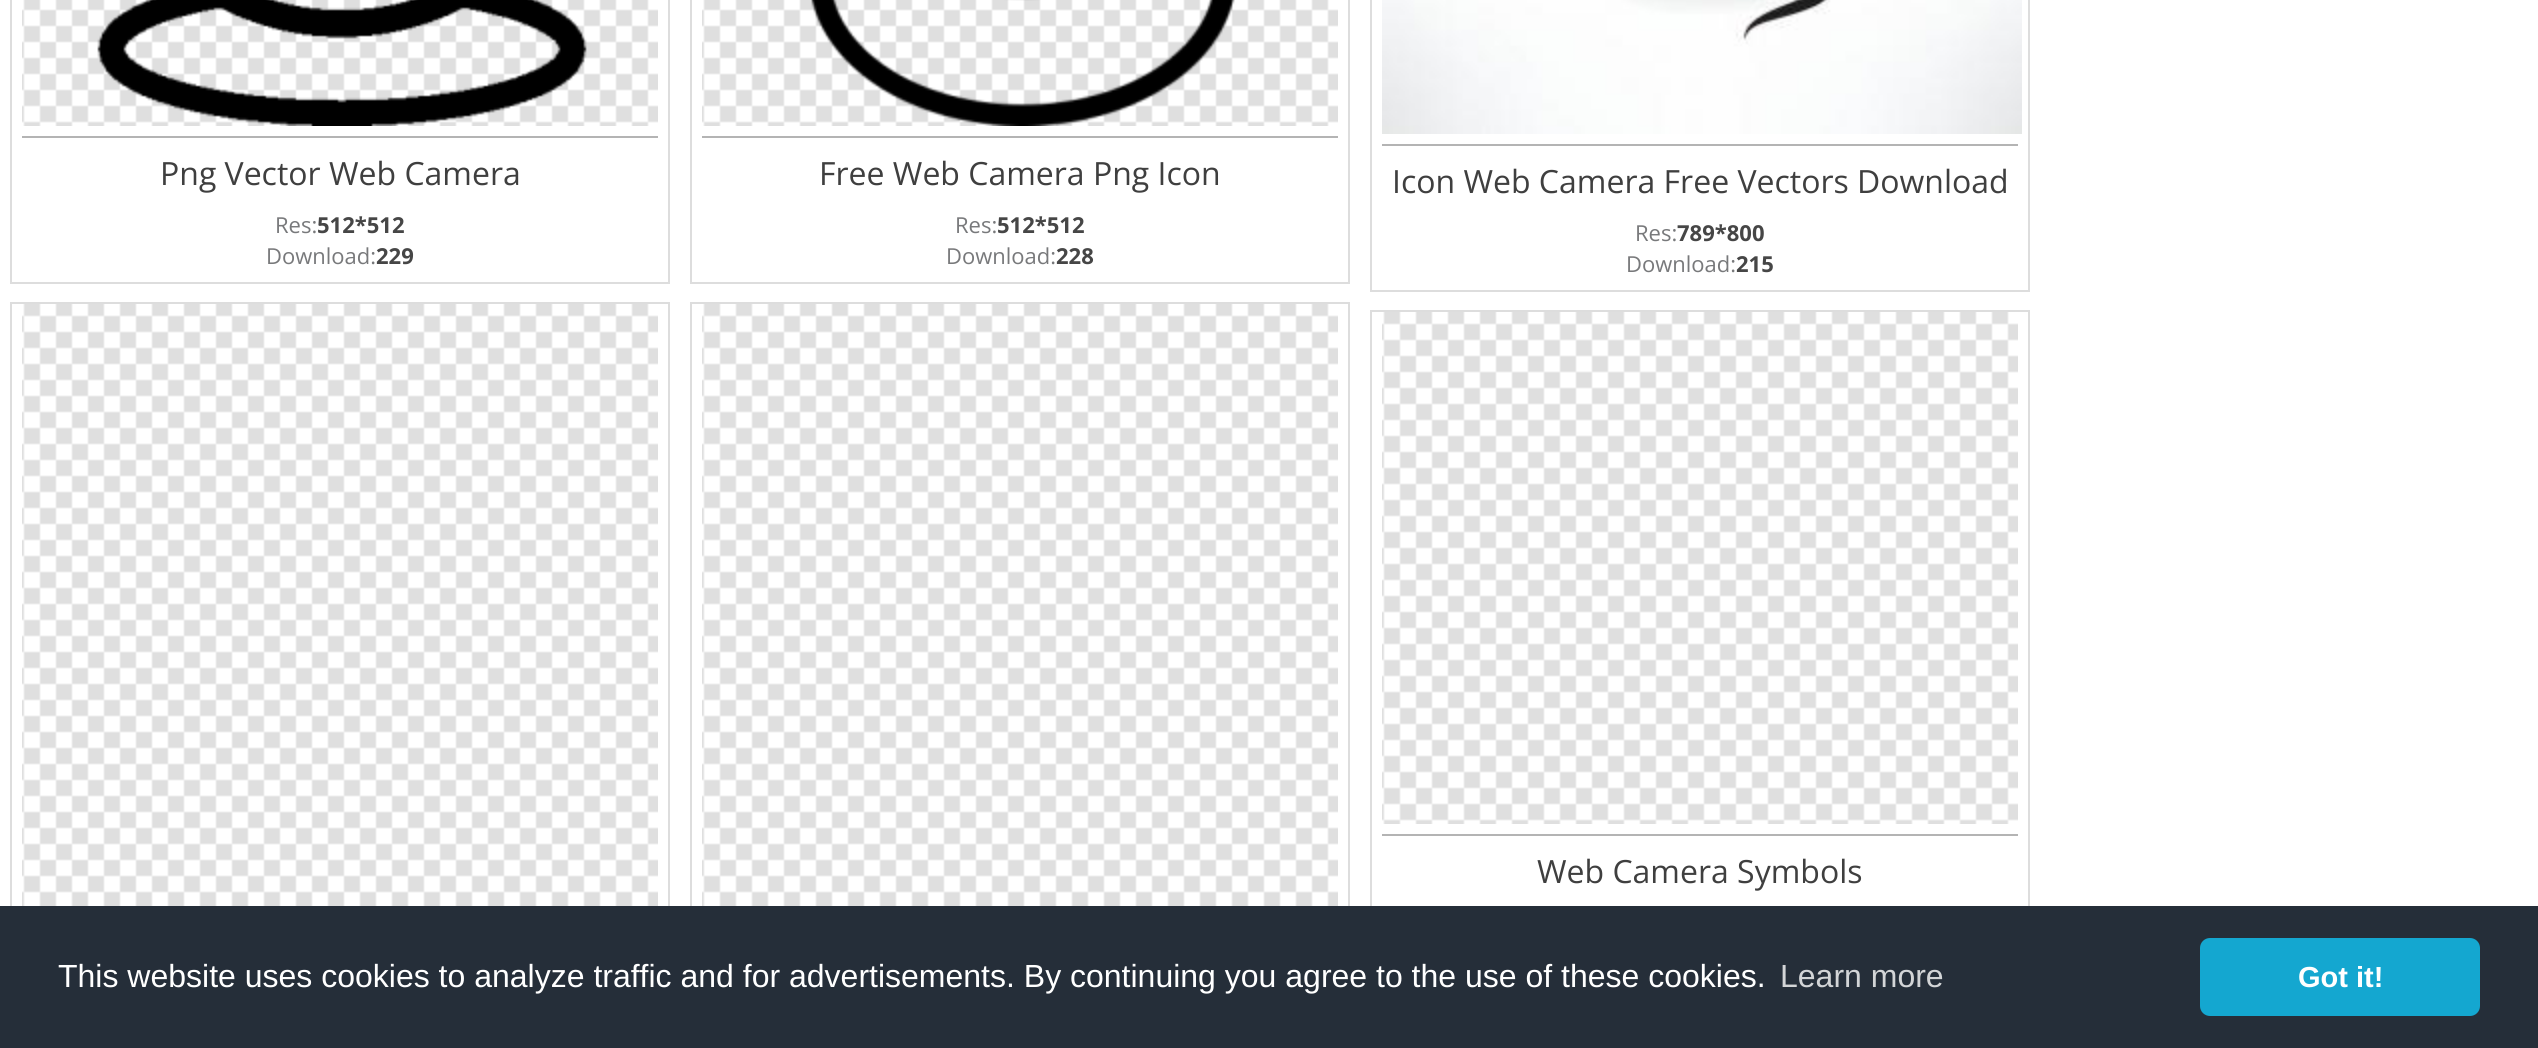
#include <cairo.h>
#include <math.h>
#include <stddef.h>


static void ink(cairo_t *ctx, unsigned color) {
    cairo_set_source_rgb(ctx, (color >> 16) / 255.0, (color >> 8 & 255) / 255.0, (color & 255) / 255.0);
}

static void round_path(cairo_t *ctx, double x, double y, double w, double h, double r) {
    cairo_new_sub_path(ctx);
    cairo_arc(ctx, x + w - r, y + h - r, r, 0, M_PI / 2);
    cairo_arc(ctx, x + r, y + h - r, r, M_PI / 2, M_PI);
    cairo_arc(ctx, x + r, y + r, r, M_PI, 1.5 * M_PI);
    cairo_arc(ctx, x + w - r, y + r, r, 1.5 * M_PI, 2 * M_PI);
    cairo_close_path(ctx);
}

static void paste(cairo_t *ctx, const char *path, double x, double y, double w, double h) {
    cairo_surface_t *image = cairo_image_surface_create_from_png(path);
    cairo_save(ctx);
    cairo_set_source_surface(ctx, image, x, y);
    cairo_rectangle(ctx, x, y, w, h);
    cairo_fill(ctx);
    cairo_restore(ctx);
    cairo_surface_destroy(image);
}

int main(void) {
    cairo_surface_t *surface = cairo_image_surface_create(CAIRO_FORMAT_RGB24, 2538, 1048);
    cairo_t *ctx = cairo_create(surface);
    cairo_font_options_t *options = cairo_font_options_create();
    cairo_font_options_set_hint_metrics(options, CAIRO_HINT_METRICS_OFF);
    cairo_font_options_set_hint_style(options, CAIRO_HINT_STYLE_NONE);
    cairo_set_font_options(ctx, options);
    cairo_set_miter_limit(ctx, 4);
    ink(ctx, 0xFFFFFF);
    cairo_paint(ctx);
    cairo_rectangle(ctx, 11, -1, 658, 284);
    ink(ctx, 0xDDDDDD);
    cairo_stroke(ctx);
    paste(ctx, "media/1.png", 22, 0, 636, 126);
    paste(ctx, "media/2.png", 97, 0, 490, 126);
    ink(ctx, 0xB4B4B4);
    cairo_rectangle(ctx, 22, 136, 636, 2);
    cairo_fill(ctx);
    cairo_select_font_face(ctx, "Open Sans", CAIRO_FONT_SLANT_NORMAL, CAIRO_FONT_WEIGHT_NORMAL);
    cairo_set_font_size(ctx, 32);
    ink(ctx, 0x3F3F3F);
    cairo_move_to(ctx, 160, 185);
    cairo_show_text(ctx, "Png Vector Web Camera");
    cairo_set_font_size(ctx, 22);
    ink(ctx, 0x78797B);
    cairo_move_to(ctx, 275, 233);
    cairo_show_text(ctx, "Res:");
    cairo_select_font_face(ctx, "Open Sans", CAIRO_FONT_SLANT_NORMAL, CAIRO_FONT_WEIGHT_BOLD);
    ink(ctx, 0x464646);
    cairo_move_to(ctx, 317, 233);
    cairo_show_text(ctx, "512*512");
    cairo_select_font_face(ctx, "Open Sans", CAIRO_FONT_SLANT_NORMAL, CAIRO_FONT_WEIGHT_NORMAL);
    ink(ctx, 0x78797B);
    cairo_move_to(ctx, 266, 264);
    cairo_show_text(ctx, "Download:");
    cairo_select_font_face(ctx, "Open Sans", CAIRO_FONT_SLANT_NORMAL, CAIRO_FONT_WEIGHT_BOLD);
    ink(ctx, 0x464646);
    cairo_move_to(ctx, 376, 264);
    cairo_show_text(ctx, "229");
    cairo_rectangle(ctx, 691, -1, 658, 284);
    ink(ctx, 0xDDDDDD);
    cairo_stroke(ctx);
    paste(ctx, "media/1.png", 702, 0, 636, 126);
    paste(ctx, "media/3.png", 811, 0, 424, 126);
    ink(ctx, 0xB4B4B4);
    cairo_rectangle(ctx, 702, 136, 636, 2);
    cairo_fill(ctx);
    cairo_select_font_face(ctx, "Open Sans", CAIRO_FONT_SLANT_NORMAL, CAIRO_FONT_WEIGHT_NORMAL);
    cairo_set_font_size(ctx, 32);
    ink(ctx, 0x3F3F3F);
    cairo_move_to(ctx, 819, 185);
    cairo_show_text(ctx, "Free Web Camera Png Icon");
    cairo_set_font_size(ctx, 22);
    ink(ctx, 0x78797B);
    cairo_move_to(ctx, 955, 233);
    cairo_show_text(ctx, "Res:");
    cairo_select_font_face(ctx, "Open Sans", CAIRO_FONT_SLANT_NORMAL, CAIRO_FONT_WEIGHT_BOLD);
    ink(ctx, 0x464646);
    cairo_move_to(ctx, 997, 233);
    cairo_show_text(ctx, "512*512");
    cairo_select_font_face(ctx, "Open Sans", CAIRO_FONT_SLANT_NORMAL, CAIRO_FONT_WEIGHT_NORMAL);
    ink(ctx, 0x78797B);
    cairo_move_to(ctx, 946, 264);
    cairo_show_text(ctx, "Download:");
    cairo_select_font_face(ctx, "Open Sans", CAIRO_FONT_SLANT_NORMAL, CAIRO_FONT_WEIGHT_BOLD);
    ink(ctx, 0x464646);
    cairo_move_to(ctx, 1056, 264);
    cairo_show_text(ctx, "228");
    cairo_rectangle(ctx, 1371, -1, 658, 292);
    ink(ctx, 0xDDDDDD);
    cairo_stroke(ctx);
    paste(ctx, "media/4.png", 1382, 0, 640, 134);
    ink(ctx, 0xB4B4B4);
    cairo_rectangle(ctx, 1382, 144, 636, 2);
    cairo_fill(ctx);
    cairo_select_font_face(ctx, "Open Sans", CAIRO_FONT_SLANT_NORMAL, CAIRO_FONT_WEIGHT_NORMAL);
    cairo_set_font_size(ctx, 32);
    ink(ctx, 0x3F3F3F);
    cairo_move_to(ctx, 1392, 193);
    cairo_show_text(ctx, "Icon Web Camera Free Vectors Download");
    cairo_set_font_size(ctx, 22);
    ink(ctx, 0x78797B);
    cairo_move_to(ctx, 1635, 241);
    cairo_show_text(ctx, "Res:");
    cairo_select_font_face(ctx, "Open Sans", CAIRO_FONT_SLANT_NORMAL, CAIRO_FONT_WEIGHT_BOLD);
    ink(ctx, 0x464646);
    cairo_move_to(ctx, 1677, 241);
    cairo_show_text(ctx, "789*800");
    cairo_select_font_face(ctx, "Open Sans", CAIRO_FONT_SLANT_NORMAL, CAIRO_FONT_WEIGHT_NORMAL);
    ink(ctx, 0x78797B);
    cairo_move_to(ctx, 1626, 272);
    cairo_show_text(ctx, "Download:");
    cairo_select_font_face(ctx, "Open Sans", CAIRO_FONT_SLANT_NORMAL, CAIRO_FONT_WEIGHT_BOLD);
    ink(ctx, 0x464646);
    cairo_move_to(ctx, 1736, 272);
    cairo_show_text(ctx, "215");
    cairo_rectangle(ctx, 11, 303, 658, 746);
    ink(ctx, 0xDDDDDD);
    cairo_stroke(ctx);
    paste(ctx, "media/5.png", 22, 304, 636, 602);
    cairo_rectangle(ctx, 691, 303, 658, 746);
    cairo_stroke(ctx);
    paste(ctx, "media/5.png", 702, 304, 636, 602);
    cairo_rectangle(ctx, 1371, 311, 658, 670);
    cairo_stroke(ctx);
    paste(ctx, "media/6.png", 1382, 312, 636, 512);
    ink(ctx, 0xB4B4B4);
    cairo_rectangle(ctx, 1382, 834, 636, 2);
    cairo_fill(ctx);
    cairo_select_font_face(ctx, "Open Sans", CAIRO_FONT_SLANT_NORMAL, CAIRO_FONT_WEIGHT_NORMAL);
    cairo_set_font_size(ctx, 32);
    ink(ctx, 0x3F3F3F);
    cairo_move_to(ctx, 1537, 883);
    cairo_show_text(ctx, "Web Camera Symbols");
    ink(ctx, 0x252E39);
    cairo_rectangle(ctx, 0, 906, 2538, 142);
    cairo_fill(ctx);
    cairo_select_font_face(ctx, "Liberation Sans", CAIRO_FONT_SLANT_NORMAL, CAIRO_FONT_WEIGHT_NORMAL);
    ink(ctx, 0xFFFFFF);
    cairo_move_to(ctx, 58, 987);
    cairo_show_text(ctx, "This website uses cookies to analyze traffic and for advertisements. By continuing you agree to the use of these cookies.");
    ink(ctx, 0xD3D5D7);
    cairo_move_to(ctx, 1780, 987);
    cairo_show_text(ctx, "Learn more");
    ink(ctx, 0x14A7D0);
    round_path(ctx, 2200, 938, 280, 78, 10);
    cairo_fill(ctx);
    cairo_select_font_face(ctx, "Liberation Sans", CAIRO_FONT_SLANT_NORMAL, CAIRO_FONT_WEIGHT_BOLD);
    cairo_set_font_size(ctx, 29);
    ink(ctx, 0xFFFFFF);
    cairo_move_to(ctx, 2298, 987);
    cairo_show_text(ctx, "Got it!");
    cairo_surface_write_to_png(surface, "image.png");
    cairo_font_options_destroy(options);
    cairo_destroy(ctx);
    cairo_surface_destroy(surface);
    return 0;
}
